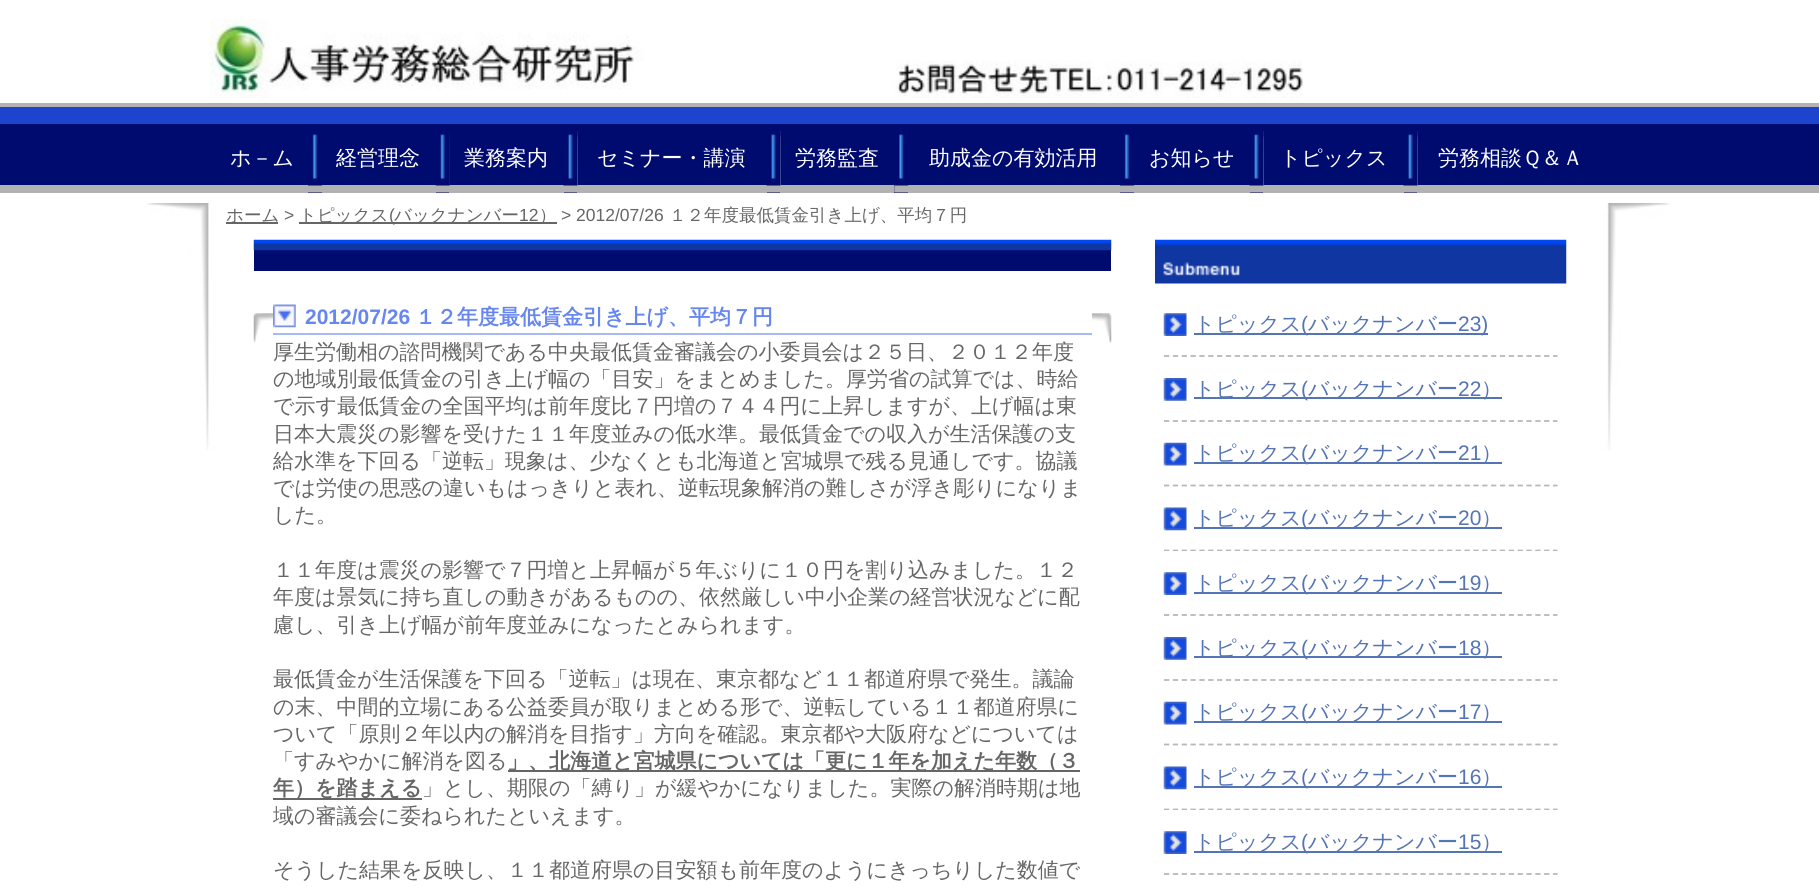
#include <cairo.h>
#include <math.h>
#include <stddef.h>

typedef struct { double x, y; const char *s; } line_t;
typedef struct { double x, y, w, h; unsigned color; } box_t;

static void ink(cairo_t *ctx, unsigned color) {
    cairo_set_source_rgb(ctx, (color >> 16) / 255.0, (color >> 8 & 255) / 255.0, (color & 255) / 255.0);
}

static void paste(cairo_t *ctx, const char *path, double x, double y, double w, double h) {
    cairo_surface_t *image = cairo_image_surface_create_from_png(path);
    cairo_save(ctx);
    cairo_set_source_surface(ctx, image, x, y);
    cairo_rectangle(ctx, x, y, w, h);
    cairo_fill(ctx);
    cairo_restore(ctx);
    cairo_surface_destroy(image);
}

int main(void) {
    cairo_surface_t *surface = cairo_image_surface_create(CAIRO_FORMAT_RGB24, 1819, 887);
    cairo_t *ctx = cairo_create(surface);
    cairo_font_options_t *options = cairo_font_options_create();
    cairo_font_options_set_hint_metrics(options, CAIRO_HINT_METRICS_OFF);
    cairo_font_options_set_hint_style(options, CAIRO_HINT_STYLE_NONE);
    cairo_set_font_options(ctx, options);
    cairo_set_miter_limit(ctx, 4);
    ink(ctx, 0xFFFFFF);
    cairo_paint(ctx);
    paste(ctx, "media/1.png", 210, 19, 1093, 79);
    {
        static const box_t items[] = {
            {0, 107, 1819, 17, 0x1C44CF},
            {0, 103, 1819, 4, 0xB2B2B2},
            {0, 124, 1819, 61, 0x000B70},
            {0, 185, 1819, 8, 0xB2B2B2},
        };
        for (size_t i = 0; i < sizeof items / sizeof *items; i++) {
            ink(ctx, items[i].color);
            cairo_rectangle(ctx, items[i].x, items[i].y, items[i].w, items[i].h);
            cairo_fill(ctx);
        }
    }
    cairo_select_font_face(ctx, "WenQuanYi Zen Hei Medium", CAIRO_FONT_SLANT_NORMAL, CAIRO_FONT_WEIGHT_NORMAL);
    cairo_set_font_size(ctx, 21);
    ink(ctx, 0xFFFFFF);
    cairo_move_to(ctx, 230, 165);
    cairo_show_text(ctx, "ホ－ム");
    ink(ctx, 0x000B70);
    cairo_rectangle(ctx, 308, 185, 14, 8);
    cairo_fill(ctx);
    paste(ctx, "media/2.png", 308, 134, 14, 59);
    ink(ctx, 0xFFFFFF);
    cairo_move_to(ctx, 336, 165);
    cairo_show_text(ctx, "経営理念");
    ink(ctx, 0x000B70);
    cairo_rectangle(ctx, 436, 185, 14, 8);
    cairo_fill(ctx);
    paste(ctx, "media/4.png", 449, 131, 1, 54);
    ink(ctx, 0xB2B2B2);
    cairo_rectangle(ctx, 449, 185, 1, 8);
    cairo_fill(ctx);
    paste(ctx, "media/3.png", 435, 131, 15, 62);
    ink(ctx, 0xFFFFFF);
    cairo_move_to(ctx, 464, 165);
    cairo_show_text(ctx, "業務案内");
    ink(ctx, 0x000B70);
    cairo_rectangle(ctx, 564, 185, 14, 8);
    cairo_fill(ctx);
    paste(ctx, "media/6.png", 577, 131, 1, 54);
    ink(ctx, 0xB2B2B2);
    cairo_rectangle(ctx, 577, 185, 1, 8);
    cairo_fill(ctx);
    paste(ctx, "media/5.png", 563, 131, 15, 62);
    ink(ctx, 0xFFFFFF);
    cairo_move_to(ctx, 597, 165);
    cairo_show_text(ctx, "セミナー・講演");
    ink(ctx, 0x000B70);
    cairo_rectangle(ctx, 767, 185, 14, 8);
    cairo_fill(ctx);
    paste(ctx, "media/6.png", 780, 131, 1, 54);
    ink(ctx, 0xB2B2B2);
    cairo_rectangle(ctx, 780, 185, 1, 8);
    cairo_fill(ctx);
    paste(ctx, "media/5.png", 766, 131, 15, 62);
    ink(ctx, 0xFFFFFF);
    cairo_move_to(ctx, 795, 165);
    cairo_show_text(ctx, "労務監査");
    ink(ctx, 0x000B70);
    cairo_rectangle(ctx, 894, 185, 14, 8);
    cairo_fill(ctx);
    paste(ctx, "media/7.png", 894, 134, 15, 59);
    ink(ctx, 0xFFFFFF);
    cairo_move_to(ctx, 929, 165);
    cairo_show_text(ctx, "助成金の有効活用");
    ink(ctx, 0x000B70);
    cairo_rectangle(ctx, 1120, 185, 14, 8);
    cairo_fill(ctx);
    paste(ctx, "media/8.png", 1120, 134, 14, 59);
    ink(ctx, 0xFFFFFF);
    cairo_move_to(ctx, 1149, 165);
    cairo_show_text(ctx, "お知らせ");
    ink(ctx, 0x000B70);
    cairo_rectangle(ctx, 1250, 185, 14, 8);
    cairo_fill(ctx);
    paste(ctx, "media/6.png", 1263, 131, 1, 54);
    ink(ctx, 0xB2B2B2);
    cairo_rectangle(ctx, 1263, 185, 1, 8);
    cairo_fill(ctx);
    paste(ctx, "media/9.png", 1249, 131, 15, 62);
    ink(ctx, 0xFFFFFF);
    cairo_move_to(ctx, 1280, 165);
    cairo_show_text(ctx, "トピックス");
    ink(ctx, 0x000B70);
    cairo_rectangle(ctx, 1404, 185, 14, 8);
    cairo_fill(ctx);
    paste(ctx, "media/6.png", 1417, 131, 1, 54);
    ink(ctx, 0xB2B2B2);
    cairo_rectangle(ctx, 1417, 185, 1, 8);
    cairo_fill(ctx);
    paste(ctx, "media/9.png", 1403, 131, 15, 62);
    ink(ctx, 0xFFFFFF);
    cairo_move_to(ctx, 1438, 165);
    cairo_show_text(ctx, "労務相談Ｑ＆Ａ");
    paste(ctx, "media/10.png", 147, 203, 1523, 248);
    ink(ctx, 0x666666);
    cairo_rectangle(ctx, 226, 222, 52, 2);
    cairo_fill(ctx);
    cairo_set_font_size(ctx, 17.5);
    cairo_move_to(ctx, 226, 221);
    cairo_show_text(ctx, "ホーム");
    cairo_select_font_face(ctx, "Liberation Sans", CAIRO_FONT_SLANT_NORMAL, CAIRO_FONT_WEIGHT_NORMAL);
    cairo_move_to(ctx, 284, 221);
    cairo_show_text(ctx, ">");
    cairo_rectangle(ctx, 299, 222, 258, 2);
    cairo_fill(ctx);
    cairo_select_font_face(ctx, "WenQuanYi Zen Hei Medium", CAIRO_FONT_SLANT_NORMAL, CAIRO_FONT_WEIGHT_NORMAL);
    cairo_move_to(ctx, 299, 221);
    cairo_show_text(ctx, "トピックス");
    cairo_select_font_face(ctx, "Liberation Sans", CAIRO_FONT_SLANT_NORMAL, CAIRO_FONT_WEIGHT_NORMAL);
    cairo_move_to(ctx, 389, 221);
    cairo_show_text(ctx, "(");
    cairo_select_font_face(ctx, "WenQuanYi Zen Hei Medium", CAIRO_FONT_SLANT_NORMAL, CAIRO_FONT_WEIGHT_NORMAL);
    cairo_move_to(ctx, 394, 221);
    cairo_show_text(ctx, "バックナンバー");
    cairo_select_font_face(ctx, "Liberation Sans", CAIRO_FONT_SLANT_NORMAL, CAIRO_FONT_WEIGHT_NORMAL);
    cairo_move_to(ctx, 519, 221);
    cairo_show_text(ctx, "12");
    cairo_select_font_face(ctx, "WenQuanYi Zen Hei Medium", CAIRO_FONT_SLANT_NORMAL, CAIRO_FONT_WEIGHT_NORMAL);
    cairo_move_to(ctx, 539, 221);
    cairo_show_text(ctx, "）");
    cairo_select_font_face(ctx, "Liberation Sans", CAIRO_FONT_SLANT_NORMAL, CAIRO_FONT_WEIGHT_NORMAL);
    cairo_move_to(ctx, 561, 221);
    cairo_show_text(ctx, "> 2012/07/26");
    cairo_select_font_face(ctx, "WenQuanYi Zen Hei Medium", CAIRO_FONT_SLANT_NORMAL, CAIRO_FONT_WEIGHT_NORMAL);
    cairo_move_to(ctx, 669, 221);
    cairo_show_text(ctx, "１２年度最低賃金引き上げ、平均７円");
    paste(ctx, "media/11.png", 253, 313, 859, 30);
    ink(ctx, 0x000B70);
    cairo_rectangle(ctx, 254, 250, 857, 21);
    cairo_fill(ctx);
    paste(ctx, "media/12.png", 253, 239, 859, 12);
    ink(ctx, 0xFFFFFF);
    cairo_rectangle(ctx, 273, 313, 819, 7);
    cairo_fill(ctx);
    paste(ctx, "media/13.png", 273, 304, 23, 24);
    ink(ctx, 0xA7B9F6);
    cairo_rectangle(ctx, 273, 333, 819, 2);
    cairo_fill(ctx);
    cairo_select_font_face(ctx, "Liberation Sans", CAIRO_FONT_SLANT_NORMAL, CAIRO_FONT_WEIGHT_BOLD);
    cairo_set_font_size(ctx, 21);
    ink(ctx, 0x6787F0);
    cairo_move_to(ctx, 305, 324);
    cairo_show_text(ctx, "2012/07/26");
    cairo_select_font_face(ctx, "WenQuanYi Zen Hei", CAIRO_FONT_SLANT_NORMAL, CAIRO_FONT_WEIGHT_BOLD);
    cairo_move_to(ctx, 415, 324);
    cairo_show_text(ctx, "１２年度最低賃金引き上げ、平均７円");
    cairo_select_font_face(ctx, "WenQuanYi Zen Hei Medium", CAIRO_FONT_SLANT_NORMAL, CAIRO_FONT_WEIGHT_NORMAL);
    ink(ctx, 0x666666);
    {
        static const line_t items[] = {
            {273, 359, "厚生労働相の諮問機関である中央最低賃金審議会の小委員会は２５日、２０１２年度"},
            {273, 386, "の地域別最低賃金の引き上げ幅の「目安」をまとめました。厚労省の試算では、時給"},
            {273, 413, "で示す最低賃金の全国平均は前年度比７円増の７４４円に上昇しますが、上げ幅は東"},
            {273, 441, "日本大震災の影響を受けた１１年度並みの低水準。最低賃金での収入が生活保護の支"},
            {273, 468, "給水準を下回る「逆転」現象は、少なくとも北海道と宮城県で残る見通しです。協議"},
            {273, 495, "では労使の思惑の違いもはっきりと表れ、逆転現象解消の難しさが浮き彫りになりま"},
            {273, 522, "した。"},
            {273, 577, "１１年度は震災の影響で７円増と上昇幅が５年ぶりに１０円を割り込みました。１２"},
            {273, 604, "年度は景気に持ち直しの動きがあるものの、依然厳しい中小企業の経営状況などに配"},
            {273, 632, "慮し、引き上げ幅が前年度並みになったとみられます。"},
            {273, 686, "最低賃金が生活保護を下回る「逆転」は現在、東京都など１１都道府県で発生。議論"},
            {273, 714, "の末、中間的立場にある公益委員が取りまとめる形で、逆転している１１都道府県に"},
            {273, 741, "ついて「原則２年以内の解消を目指す」方向を確認。東京都や大阪府などについては"},
            {273, 768, "「すみやかに解消を図る"},
        };
        for (size_t i = 0; i < sizeof items / sizeof *items; i++) {
            cairo_move_to(ctx, items[i].x, items[i].y);
            cairo_show_text(ctx, items[i].s);
        }
    }
    cairo_rectangle(ctx, 508, 770, 572, 2);
    cairo_fill(ctx);
    cairo_select_font_face(ctx, "WenQuanYi Zen Hei", CAIRO_FONT_SLANT_NORMAL, CAIRO_FONT_WEIGHT_BOLD);
    cairo_move_to(ctx, 507, 768);
    cairo_show_text(ctx, "」、北海道と宮城県については「更に１年を加えた年数（３");
    cairo_rectangle(ctx, 273, 798, 149, 2);
    cairo_fill(ctx);
    cairo_move_to(ctx, 273, 795);
    cairo_show_text(ctx, "年）を踏まえる");
    cairo_select_font_face(ctx, "WenQuanYi Zen Hei Medium", CAIRO_FONT_SLANT_NORMAL, CAIRO_FONT_WEIGHT_NORMAL);
    {
        static const line_t items[] = {
            {422, 795, "」とし、期限の「縛り」が緩やかになりました。実際の解消時期は地"},
            {273, 823, "域の審議会に委ねられたといえます。"},
            {273, 877, "そうした結果を反映し、１１都道府県の目安額も前年度のようにきっちりした数値で"},
        };
        for (size_t i = 0; i < sizeof items / sizeof *items; i++) {
            cairo_move_to(ctx, items[i].x, items[i].y);
            cairo_show_text(ctx, items[i].s);
        }
    }
    paste(ctx, "media/14.png", 1155, 239, 412, 45);
    paste(ctx, "media/15.png", 1163, 313, 24, 23);
    cairo_new_path(ctx);
    cairo_move_to(ctx, 1164, 356);
    cairo_line_to(ctx, 1557.5, 356);
    ink(ctx, 0xB8B8B8);
    cairo_set_line_width(ctx, 1.8);
    cairo_set_dash(ctx, (double[]){5.25, 3.59}, 2, 0);
    cairo_stroke(ctx);
    ink(ctx, 0x5574B5);
    cairo_rectangle(ctx, 1194, 333, 294, 2);
    cairo_fill(ctx);
    cairo_move_to(ctx, 1194, 331);
    cairo_show_text(ctx, "トピックス");
    cairo_select_font_face(ctx, "Liberation Sans", CAIRO_FONT_SLANT_NORMAL, CAIRO_FONT_WEIGHT_NORMAL);
    cairo_move_to(ctx, 1301, 331);
    cairo_show_text(ctx, "(");
    cairo_select_font_face(ctx, "WenQuanYi Zen Hei Medium", CAIRO_FONT_SLANT_NORMAL, CAIRO_FONT_WEIGHT_NORMAL);
    cairo_move_to(ctx, 1308, 331);
    cairo_show_text(ctx, "バックナンバー");
    cairo_select_font_face(ctx, "Liberation Sans", CAIRO_FONT_SLANT_NORMAL, CAIRO_FONT_WEIGHT_NORMAL);
    cairo_move_to(ctx, 1458, 331);
    cairo_show_text(ctx, "23)");
    paste(ctx, "media/16.png", 1163, 378, 24, 23);
    cairo_new_path(ctx);
    cairo_move_to(ctx, 1164, 421);
    cairo_line_to(ctx, 1557.5, 421);
    ink(ctx, 0xB8B8B8);
    cairo_stroke(ctx);
    ink(ctx, 0x5574B5);
    cairo_rectangle(ctx, 1194, 397, 308, 2);
    cairo_fill(ctx);
    cairo_select_font_face(ctx, "WenQuanYi Zen Hei Medium", CAIRO_FONT_SLANT_NORMAL, CAIRO_FONT_WEIGHT_NORMAL);
    cairo_move_to(ctx, 1194, 396);
    cairo_show_text(ctx, "トピックス");
    cairo_select_font_face(ctx, "Liberation Sans", CAIRO_FONT_SLANT_NORMAL, CAIRO_FONT_WEIGHT_NORMAL);
    cairo_move_to(ctx, 1301, 396);
    cairo_show_text(ctx, "(");
    cairo_select_font_face(ctx, "WenQuanYi Zen Hei Medium", CAIRO_FONT_SLANT_NORMAL, CAIRO_FONT_WEIGHT_NORMAL);
    cairo_move_to(ctx, 1308, 396);
    cairo_show_text(ctx, "バックナンバー");
    cairo_select_font_face(ctx, "Liberation Sans", CAIRO_FONT_SLANT_NORMAL, CAIRO_FONT_WEIGHT_NORMAL);
    cairo_move_to(ctx, 1458, 396);
    cairo_show_text(ctx, "22");
    cairo_select_font_face(ctx, "WenQuanYi Zen Hei Medium", CAIRO_FONT_SLANT_NORMAL, CAIRO_FONT_WEIGHT_NORMAL);
    cairo_move_to(ctx, 1481, 396);
    cairo_show_text(ctx, "）");
    paste(ctx, "media/17.png", 1163, 442, 24, 24);
    cairo_new_path(ctx);
    cairo_move_to(ctx, 1164, 485.5);
    cairo_line_to(ctx, 1557.5, 485.5);
    ink(ctx, 0xB8B8B8);
    cairo_stroke(ctx);
    ink(ctx, 0x5574B5);
    cairo_rectangle(ctx, 1194, 462, 308, 2);
    cairo_fill(ctx);
    cairo_move_to(ctx, 1194, 460);
    cairo_show_text(ctx, "トピックス");
    cairo_select_font_face(ctx, "Liberation Sans", CAIRO_FONT_SLANT_NORMAL, CAIRO_FONT_WEIGHT_NORMAL);
    cairo_move_to(ctx, 1301, 460);
    cairo_show_text(ctx, "(");
    cairo_select_font_face(ctx, "WenQuanYi Zen Hei Medium", CAIRO_FONT_SLANT_NORMAL, CAIRO_FONT_WEIGHT_NORMAL);
    cairo_move_to(ctx, 1308, 460);
    cairo_show_text(ctx, "バックナンバー");
    cairo_select_font_face(ctx, "Liberation Sans", CAIRO_FONT_SLANT_NORMAL, CAIRO_FONT_WEIGHT_NORMAL);
    cairo_move_to(ctx, 1458, 460);
    cairo_show_text(ctx, "21");
    cairo_select_font_face(ctx, "WenQuanYi Zen Hei Medium", CAIRO_FONT_SLANT_NORMAL, CAIRO_FONT_WEIGHT_NORMAL);
    cairo_move_to(ctx, 1481, 460);
    cairo_show_text(ctx, "）");
    paste(ctx, "media/18.png", 1163, 507, 24, 24);
    cairo_new_path(ctx);
    cairo_move_to(ctx, 1164, 550.5);
    cairo_line_to(ctx, 1557.5, 550.5);
    ink(ctx, 0xB8B8B8);
    cairo_stroke(ctx);
    ink(ctx, 0x5574B5);
    cairo_rectangle(ctx, 1194, 527, 308, 2);
    cairo_fill(ctx);
    cairo_move_to(ctx, 1194, 525);
    cairo_show_text(ctx, "トピックス");
    cairo_select_font_face(ctx, "Liberation Sans", CAIRO_FONT_SLANT_NORMAL, CAIRO_FONT_WEIGHT_NORMAL);
    cairo_move_to(ctx, 1301, 525);
    cairo_show_text(ctx, "(");
    cairo_select_font_face(ctx, "WenQuanYi Zen Hei Medium", CAIRO_FONT_SLANT_NORMAL, CAIRO_FONT_WEIGHT_NORMAL);
    cairo_move_to(ctx, 1308, 525);
    cairo_show_text(ctx, "バックナンバー");
    cairo_select_font_face(ctx, "Liberation Sans", CAIRO_FONT_SLANT_NORMAL, CAIRO_FONT_WEIGHT_NORMAL);
    cairo_move_to(ctx, 1458, 525);
    cairo_show_text(ctx, "20");
    cairo_select_font_face(ctx, "WenQuanYi Zen Hei Medium", CAIRO_FONT_SLANT_NORMAL, CAIRO_FONT_WEIGHT_NORMAL);
    cairo_move_to(ctx, 1481, 525);
    cairo_show_text(ctx, "）");
    ink(ctx, 0xFFFFFF);
    cairo_rectangle(ctx, 1164, 551, 394, 1);
    cairo_fill(ctx);
    paste(ctx, "media/15.png", 1163, 572, 24, 23);
    cairo_new_path(ctx);
    cairo_move_to(ctx, 1164, 615);
    cairo_line_to(ctx, 1557.5, 615);
    ink(ctx, 0xB8B8B8);
    cairo_stroke(ctx);
    ink(ctx, 0x5574B5);
    cairo_rectangle(ctx, 1194, 592, 308, 2);
    cairo_fill(ctx);
    cairo_move_to(ctx, 1194, 590);
    cairo_show_text(ctx, "トピックス");
    cairo_select_font_face(ctx, "Liberation Sans", CAIRO_FONT_SLANT_NORMAL, CAIRO_FONT_WEIGHT_NORMAL);
    cairo_move_to(ctx, 1301, 590);
    cairo_show_text(ctx, "(");
    cairo_select_font_face(ctx, "WenQuanYi Zen Hei Medium", CAIRO_FONT_SLANT_NORMAL, CAIRO_FONT_WEIGHT_NORMAL);
    cairo_move_to(ctx, 1308, 590);
    cairo_show_text(ctx, "バックナンバー");
    cairo_select_font_face(ctx, "Liberation Sans", CAIRO_FONT_SLANT_NORMAL, CAIRO_FONT_WEIGHT_NORMAL);
    cairo_move_to(ctx, 1458, 590);
    cairo_show_text(ctx, "19");
    cairo_select_font_face(ctx, "WenQuanYi Zen Hei Medium", CAIRO_FONT_SLANT_NORMAL, CAIRO_FONT_WEIGHT_NORMAL);
    cairo_move_to(ctx, 1481, 590);
    cairo_show_text(ctx, "）");
    paste(ctx, "media/16.png", 1163, 637, 24, 23);
    cairo_new_path(ctx);
    cairo_move_to(ctx, 1164, 680);
    cairo_line_to(ctx, 1557.5, 680);
    ink(ctx, 0xB8B8B8);
    cairo_stroke(ctx);
    ink(ctx, 0x5574B5);
    cairo_rectangle(ctx, 1194, 656, 308, 2);
    cairo_fill(ctx);
    cairo_move_to(ctx, 1194, 655);
    cairo_show_text(ctx, "トピックス");
    cairo_select_font_face(ctx, "Liberation Sans", CAIRO_FONT_SLANT_NORMAL, CAIRO_FONT_WEIGHT_NORMAL);
    cairo_move_to(ctx, 1301, 655);
    cairo_show_text(ctx, "(");
    cairo_select_font_face(ctx, "WenQuanYi Zen Hei Medium", CAIRO_FONT_SLANT_NORMAL, CAIRO_FONT_WEIGHT_NORMAL);
    cairo_move_to(ctx, 1308, 655);
    cairo_show_text(ctx, "バックナンバー");
    cairo_select_font_face(ctx, "Liberation Sans", CAIRO_FONT_SLANT_NORMAL, CAIRO_FONT_WEIGHT_NORMAL);
    cairo_move_to(ctx, 1458, 655);
    cairo_show_text(ctx, "18");
    cairo_select_font_face(ctx, "WenQuanYi Zen Hei Medium", CAIRO_FONT_SLANT_NORMAL, CAIRO_FONT_WEIGHT_NORMAL);
    cairo_move_to(ctx, 1481, 655);
    cairo_show_text(ctx, "）");
    paste(ctx, "media/17.png", 1163, 701, 24, 24);
    cairo_new_path(ctx);
    cairo_move_to(ctx, 1164, 744.5);
    cairo_line_to(ctx, 1557.5, 744.5);
    ink(ctx, 0xB8B8B8);
    cairo_stroke(ctx);
    ink(ctx, 0x5574B5);
    cairo_rectangle(ctx, 1194, 721, 308, 2);
    cairo_fill(ctx);
    cairo_move_to(ctx, 1194, 719);
    cairo_show_text(ctx, "トピックス");
    cairo_select_font_face(ctx, "Liberation Sans", CAIRO_FONT_SLANT_NORMAL, CAIRO_FONT_WEIGHT_NORMAL);
    cairo_move_to(ctx, 1301, 719);
    cairo_show_text(ctx, "(");
    cairo_select_font_face(ctx, "WenQuanYi Zen Hei Medium", CAIRO_FONT_SLANT_NORMAL, CAIRO_FONT_WEIGHT_NORMAL);
    cairo_move_to(ctx, 1308, 719);
    cairo_show_text(ctx, "バックナンバー");
    cairo_select_font_face(ctx, "Liberation Sans", CAIRO_FONT_SLANT_NORMAL, CAIRO_FONT_WEIGHT_NORMAL);
    cairo_move_to(ctx, 1458, 719);
    cairo_show_text(ctx, "17");
    cairo_select_font_face(ctx, "WenQuanYi Zen Hei Medium", CAIRO_FONT_SLANT_NORMAL, CAIRO_FONT_WEIGHT_NORMAL);
    cairo_move_to(ctx, 1481, 719);
    cairo_show_text(ctx, "）");
    paste(ctx, "media/18.png", 1163, 766, 24, 24);
    cairo_new_path(ctx);
    cairo_move_to(ctx, 1164, 809.5);
    cairo_line_to(ctx, 1557.5, 809.5);
    ink(ctx, 0xB8B8B8);
    cairo_stroke(ctx);
    ink(ctx, 0x5574B5);
    cairo_rectangle(ctx, 1194, 786, 308, 2);
    cairo_fill(ctx);
    cairo_move_to(ctx, 1194, 784);
    cairo_show_text(ctx, "トピックス");
    cairo_select_font_face(ctx, "Liberation Sans", CAIRO_FONT_SLANT_NORMAL, CAIRO_FONT_WEIGHT_NORMAL);
    cairo_move_to(ctx, 1301, 784);
    cairo_show_text(ctx, "(");
    cairo_select_font_face(ctx, "WenQuanYi Zen Hei Medium", CAIRO_FONT_SLANT_NORMAL, CAIRO_FONT_WEIGHT_NORMAL);
    cairo_move_to(ctx, 1308, 784);
    cairo_show_text(ctx, "バックナンバー");
    cairo_select_font_face(ctx, "Liberation Sans", CAIRO_FONT_SLANT_NORMAL, CAIRO_FONT_WEIGHT_NORMAL);
    cairo_move_to(ctx, 1458, 784);
    cairo_show_text(ctx, "16");
    cairo_select_font_face(ctx, "WenQuanYi Zen Hei Medium", CAIRO_FONT_SLANT_NORMAL, CAIRO_FONT_WEIGHT_NORMAL);
    cairo_move_to(ctx, 1481, 784);
    cairo_show_text(ctx, "）");
    ink(ctx, 0xFFFFFF);
    cairo_rectangle(ctx, 1164, 810, 394, 1);
    cairo_fill(ctx);
    paste(ctx, "media/15.png", 1163, 831, 24, 23);
    cairo_new_path(ctx);
    cairo_move_to(ctx, 1164, 874);
    cairo_line_to(ctx, 1557.5, 874);
    ink(ctx, 0xB8B8B8);
    cairo_stroke(ctx);
    ink(ctx, 0x5574B5);
    cairo_rectangle(ctx, 1194, 851, 308, 2);
    cairo_fill(ctx);
    cairo_move_to(ctx, 1194, 849);
    cairo_show_text(ctx, "トピックス");
    cairo_select_font_face(ctx, "Liberation Sans", CAIRO_FONT_SLANT_NORMAL, CAIRO_FONT_WEIGHT_NORMAL);
    cairo_move_to(ctx, 1301, 849);
    cairo_show_text(ctx, "(");
    cairo_select_font_face(ctx, "WenQuanYi Zen Hei Medium", CAIRO_FONT_SLANT_NORMAL, CAIRO_FONT_WEIGHT_NORMAL);
    cairo_move_to(ctx, 1308, 849);
    cairo_show_text(ctx, "バックナンバー");
    cairo_select_font_face(ctx, "Liberation Sans", CAIRO_FONT_SLANT_NORMAL, CAIRO_FONT_WEIGHT_NORMAL);
    cairo_move_to(ctx, 1458, 849);
    cairo_show_text(ctx, "15");
    cairo_select_font_face(ctx, "WenQuanYi Zen Hei Medium", CAIRO_FONT_SLANT_NORMAL, CAIRO_FONT_WEIGHT_NORMAL);
    cairo_move_to(ctx, 1481, 849);
    cairo_show_text(ctx, "）");
    cairo_surface_write_to_png(surface, "image.png");
    cairo_font_options_destroy(options);
    cairo_destroy(ctx);
    cairo_surface_destroy(surface);
    return 0;
}
